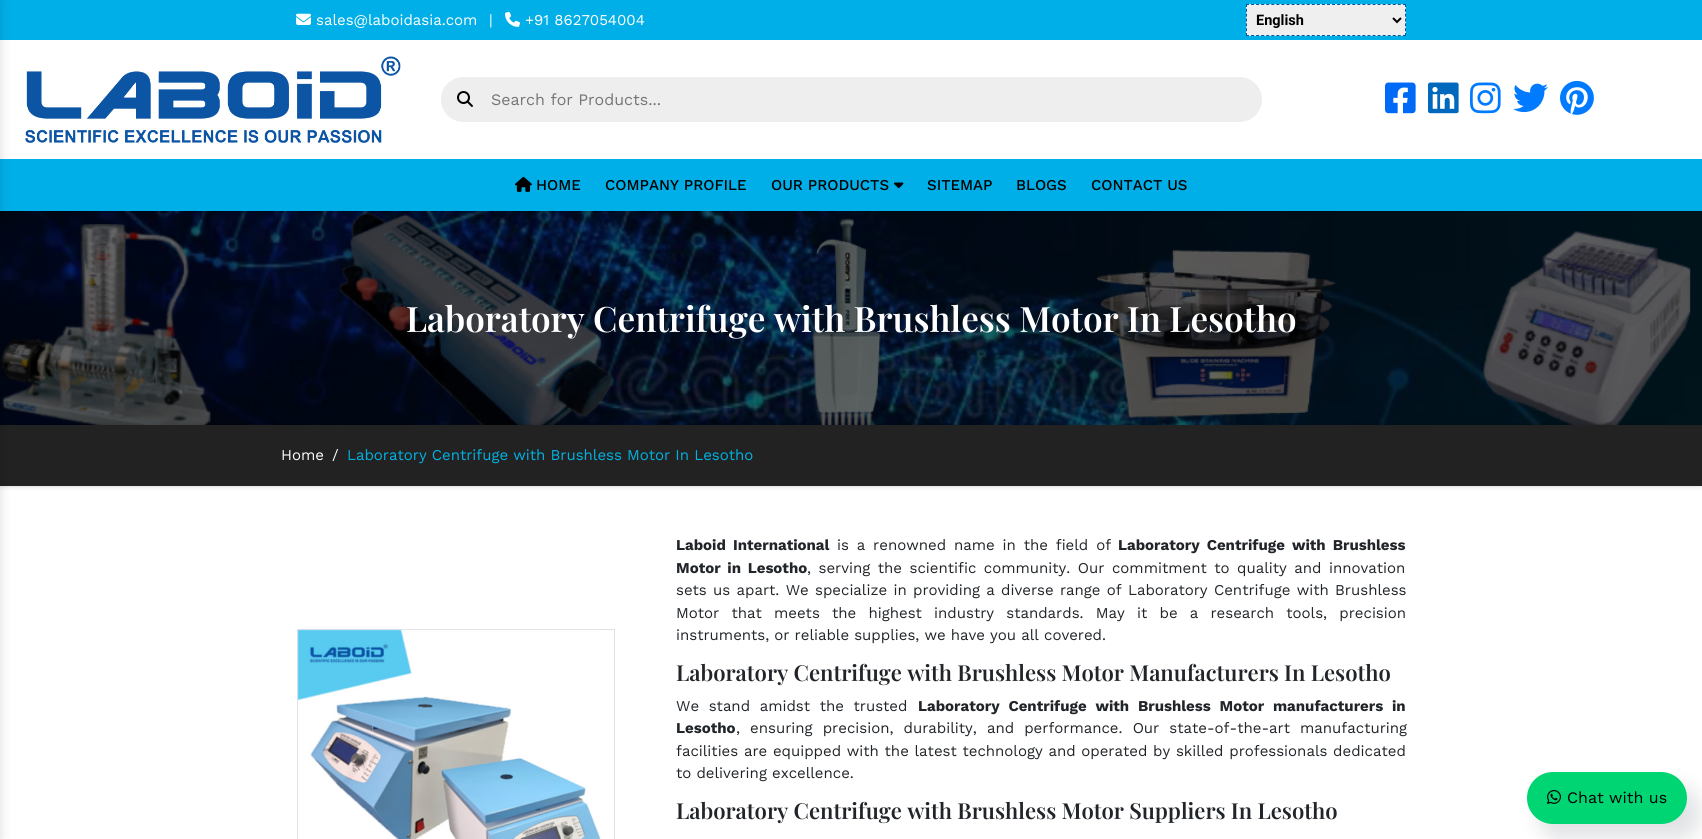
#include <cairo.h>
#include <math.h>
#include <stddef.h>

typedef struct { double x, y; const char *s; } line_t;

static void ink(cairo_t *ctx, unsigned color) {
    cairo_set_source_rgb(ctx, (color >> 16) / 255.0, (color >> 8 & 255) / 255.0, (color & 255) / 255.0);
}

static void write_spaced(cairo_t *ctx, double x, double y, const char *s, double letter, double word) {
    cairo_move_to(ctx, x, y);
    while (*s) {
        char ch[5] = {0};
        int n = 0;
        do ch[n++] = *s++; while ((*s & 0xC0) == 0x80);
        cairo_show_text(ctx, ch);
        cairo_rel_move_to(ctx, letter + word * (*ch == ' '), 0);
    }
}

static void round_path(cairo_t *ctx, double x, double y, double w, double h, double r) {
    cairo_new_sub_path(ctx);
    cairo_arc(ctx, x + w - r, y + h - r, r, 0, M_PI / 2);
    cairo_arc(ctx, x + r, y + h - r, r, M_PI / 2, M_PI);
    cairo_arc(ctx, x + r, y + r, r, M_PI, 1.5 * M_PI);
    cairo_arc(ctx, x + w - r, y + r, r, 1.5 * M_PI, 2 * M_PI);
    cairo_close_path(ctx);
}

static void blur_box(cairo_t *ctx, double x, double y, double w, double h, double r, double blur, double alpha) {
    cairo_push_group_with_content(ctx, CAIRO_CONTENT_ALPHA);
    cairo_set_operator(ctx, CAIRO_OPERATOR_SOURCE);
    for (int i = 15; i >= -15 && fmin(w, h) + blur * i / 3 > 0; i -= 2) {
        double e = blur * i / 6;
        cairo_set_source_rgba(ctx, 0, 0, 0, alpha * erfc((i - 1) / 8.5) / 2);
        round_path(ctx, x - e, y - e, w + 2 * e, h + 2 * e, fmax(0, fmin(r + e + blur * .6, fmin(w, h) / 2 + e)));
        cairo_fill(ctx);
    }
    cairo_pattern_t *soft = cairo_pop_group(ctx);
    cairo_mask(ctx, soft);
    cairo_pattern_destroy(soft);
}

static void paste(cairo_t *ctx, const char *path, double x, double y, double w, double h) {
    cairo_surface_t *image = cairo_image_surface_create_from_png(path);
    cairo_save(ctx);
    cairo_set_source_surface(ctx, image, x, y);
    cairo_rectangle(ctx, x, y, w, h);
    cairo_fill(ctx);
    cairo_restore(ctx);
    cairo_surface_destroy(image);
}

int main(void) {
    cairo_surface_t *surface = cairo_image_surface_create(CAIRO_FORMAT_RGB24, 1702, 839);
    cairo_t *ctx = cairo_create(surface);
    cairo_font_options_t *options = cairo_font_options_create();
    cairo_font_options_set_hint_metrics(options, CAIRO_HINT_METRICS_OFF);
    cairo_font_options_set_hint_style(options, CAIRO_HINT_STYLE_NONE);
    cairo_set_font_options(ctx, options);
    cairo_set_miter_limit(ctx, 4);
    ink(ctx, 0xFFFFFF);
    cairo_paint(ctx);
    ink(ctx, 0x00AFE7);
    cairo_rectangle(ctx, 0, 0, 1702, 40);
    cairo_fill(ctx);
    cairo_rectangle(ctx, 0, 159, 1702, 52);
    cairo_fill(ctx);
    paste(ctx, "media/12.png", 0, 211, 1702, 214);
    ink(ctx, 0x000000);
    blur_box(ctx, 0, 425, 1702, 61, 0, 2.5, 0.2);
    ink(ctx, 0x222222);
    cairo_rectangle(ctx, 0, 425, 1702, 61);
    cairo_fill(ctx);
    ink(ctx, 0x000000);
    blur_box(ctx, -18, 0, 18, 839, 0, 6, 0.14);
    paste(ctx, "media/1.png", 296, 13, 15, 12);
    cairo_select_font_face(ctx, "Work Sans", CAIRO_FONT_SLANT_NORMAL, CAIRO_FONT_WEIGHT_NORMAL);
    cairo_set_font_size(ctx, 15);
    ink(ctx, 0xFFFFFF);
    cairo_move_to(ctx, 316, 25);
    cairo_show_text(ctx, "sales@laboidasia.com");
    cairo_move_to(ctx, 489, 25);
    cairo_show_text(ctx, "|");
    paste(ctx, "media/2.png", 505, 11, 15, 16);
    cairo_move_to(ctx, 525, 25);
    cairo_show_text(ctx, "+91 8627054004");
    ink(ctx, 0xEFEFEF);
    cairo_rectangle(ctx, 1246, 4, 160, 32);
    cairo_fill(ctx);
    cairo_new_path(ctx);
    cairo_move_to(ctx, 1246, 4.5);
    cairo_line_to(ctx, 1406, 4.5);
    ink(ctx, 0x0059A0);
    cairo_set_line_width(ctx, 1);
    cairo_set_dash(ctx, (double[]){3, 2.06}, 2, 0);
    cairo_stroke(ctx);
    cairo_new_path(ctx);
    cairo_move_to(ctx, 1405.5, 4);
    cairo_line_to(ctx, 1405.5, 36);
    cairo_set_dash(ctx, (double[]){3, 1.83}, 2, 0);
    cairo_stroke(ctx);
    cairo_new_path(ctx);
    cairo_move_to(ctx, 1246, 35.5);
    cairo_line_to(ctx, 1406, 35.5);
    cairo_set_dash(ctx, (double[]){3, 2.06}, 2, 0);
    cairo_stroke(ctx);
    cairo_new_path(ctx);
    cairo_move_to(ctx, 1246.5, 4);
    cairo_line_to(ctx, 1246.5, 36);
    cairo_set_dash(ctx, (double[]){3, 1.83}, 2, 0);
    cairo_stroke(ctx);
    cairo_new_path(ctx);
    cairo_move_to(ctx, 1393, 18);
    cairo_line_to(ctx, 1397, 22);
    cairo_line_to(ctx, 1401, 18);
    ink(ctx, 0x000000);
    cairo_set_line_width(ctx, 2);
    cairo_set_dash(ctx, NULL, 0, 0);
    cairo_stroke(ctx);
    cairo_select_font_face(ctx, "Roboto", CAIRO_FONT_SLANT_NORMAL, CAIRO_FONT_WEIGHT_BOLD);
    cairo_set_font_size(ctx, 14.5);
    cairo_move_to(ctx, 1256, 25);
    cairo_show_text(ctx, "English");
    paste(ctx, "media/3.png", 25, 56, 376, 87);
    ink(ctx, 0xEEEEEE);
    round_path(ctx, 441, 77, 821, 45, 22.5);
    cairo_fill(ctx);
    paste(ctx, "media/4.png", 457, 91, 16, 16);
    cairo_select_font_face(ctx, "Work Sans", CAIRO_FONT_SLANT_NORMAL, CAIRO_FONT_WEIGHT_NORMAL);
    cairo_set_font_size(ctx, 16);
    ink(ctx, 0x757575);
    cairo_move_to(ctx, 491, 105);
    cairo_show_text(ctx, "Search for Products...");
    paste(ctx, "media/5.png", 1385, 82, 31, 32);
    paste(ctx, "media/6.png", 1428, 82, 31, 32);
    paste(ctx, "media/7.png", 1470, 82, 31, 32);
    paste(ctx, "media/8.png", 1513, 83, 35, 30);
    paste(ctx, "media/9.png", 1560, 80, 34, 35);
    paste(ctx, "media/10.png", 515, 176, 17, 16);
    cairo_select_font_face(ctx, "Work Sans Medium", CAIRO_FONT_SLANT_NORMAL, CAIRO_FONT_WEIGHT_NORMAL);
    cairo_set_font_size(ctx, 15);
    ink(ctx, 0x000000);
    {
        static const line_t items[] = {
            {536, 190, "HOME"},
            {605, 190, "COMPANY PROFILE"},
            {771, 190, "OUR PRODUCTS"},
        };
        for (size_t i = 0; i < sizeof items / sizeof *items; i++) {
            cairo_move_to(ctx, items[i].x, items[i].y);
            cairo_show_text(ctx, items[i].s);
        }
    }
    paste(ctx, "media/11.png", 894, 182, 10, 7);
    {
        static const line_t items[] = {
            {927, 190, "SITEMAP"},
            {1016, 190, "BLOGS"},
            {1091, 190, "CONTACT US"},
        };
        for (size_t i = 0; i < sizeof items / sizeof *items; i++) {
            cairo_move_to(ctx, items[i].x, items[i].y);
            cairo_show_text(ctx, items[i].s);
        }
    }
    cairo_select_font_face(ctx, "Playfair Display SemiBold", CAIRO_FONT_SLANT_NORMAL, CAIRO_FONT_WEIGHT_NORMAL);
    cairo_set_font_size(ctx, 35);
    ink(ctx, 0xFFFFFF);
    cairo_move_to(ctx, 406, 332);
    cairo_show_text(ctx, "Laboratory Centrifuge with Brushless Motor In Lesotho");
    cairo_select_font_face(ctx, "Work Sans", CAIRO_FONT_SLANT_NORMAL, CAIRO_FONT_WEIGHT_NORMAL);
    cairo_set_font_size(ctx, 15);
    cairo_move_to(ctx, 281, 460);
    cairo_show_text(ctx, "Home");
    cairo_move_to(ctx, 332, 460);
    cairo_show_text(ctx, "/");
    ink(ctx, 0x00B2E3);
    cairo_move_to(ctx, 347, 460);
    cairo_show_text(ctx, "Laboratory Centrifuge with Brushless Motor In Lesotho");
    cairo_rectangle(ctx, 297.5, 629.5, 317, 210);
    ink(ctx, 0xDEE2E6);
    cairo_set_line_width(ctx, 1);
    cairo_stroke(ctx);
    paste(ctx, "media/13.png", 297, 629, 304, 210);
    cairo_select_font_face(ctx, "Work Sans", CAIRO_FONT_SLANT_NORMAL, CAIRO_FONT_WEIGHT_BOLD);
    ink(ctx, 0x212529);
    write_spaced(ctx, 676, 550, "Laboid International", 0, 2.75);
    cairo_select_font_face(ctx, "Work Sans", CAIRO_FONT_SLANT_NORMAL, CAIRO_FONT_WEIGHT_NORMAL);
    write_spaced(ctx, 837, 550, "is a renowned name in the field of", 0, 2.75);
    cairo_select_font_face(ctx, "Work Sans", CAIRO_FONT_SLANT_NORMAL, CAIRO_FONT_WEIGHT_BOLD);
    write_spaced(ctx, 1118, 550, "Laboratory Centrifuge with Brushless", 0, 2.75);
    write_spaced(ctx, 676, 573, "Motor in Lesotho", 0, 2.4);
    cairo_select_font_face(ctx, "Work Sans", CAIRO_FONT_SLANT_NORMAL, CAIRO_FONT_WEIGHT_NORMAL);
    write_spaced(ctx, 807, 573, ", serving the scientific community. Our commitment to quality and innovation", 0, 2.4);
    write_spaced(ctx, 676, 595, "sets us apart. We specialize in providing a diverse range of Laboratory Centrifuge with Brushless", 0, 1.2);
    write_spaced(ctx, 676, 618, "Motor that meets the highest industry standards. May it be a research tools, precision", 0, 7.1);
    cairo_move_to(ctx, 676, 640);
    cairo_show_text(ctx, "instruments, or reliable supplies, we have you all covered.");
    cairo_select_font_face(ctx, "Playfair Display SemiBold", CAIRO_FONT_SLANT_NORMAL, CAIRO_FONT_WEIGHT_NORMAL);
    cairo_set_font_size(ctx, 22);
    cairo_move_to(ctx, 676, 681);
    cairo_show_text(ctx, "Laboratory Centrifuge with Brushless Motor Manufacturers In Lesotho");
    cairo_select_font_face(ctx, "Work Sans", CAIRO_FONT_SLANT_NORMAL, CAIRO_FONT_WEIGHT_NORMAL);
    cairo_set_font_size(ctx, 15);
    write_spaced(ctx, 676, 711, "We stand amidst the trusted", 0, 4.5);
    cairo_select_font_face(ctx, "Work Sans", CAIRO_FONT_SLANT_NORMAL, CAIRO_FONT_WEIGHT_BOLD);
    write_spaced(ctx, 918, 711, "Laboratory Centrifuge with Brushless Motor manufacturers in", 0, 4.5);
    cairo_move_to(ctx, 676, 733);
    cairo_show_text(ctx, "Lesotho");
    cairo_select_font_face(ctx, "Work Sans", CAIRO_FONT_SLANT_NORMAL, CAIRO_FONT_WEIGHT_NORMAL);
    write_spaced(ctx, 736, 733, ", ensuring precision, durability, and performance. Our state-of-the-art manufacturing", 0, 5);
    write_spaced(ctx, 676, 756, "facilities are equipped with the latest technology and operated by skilled professionals dedicated", 0, 0.6);
    cairo_move_to(ctx, 676, 778);
    cairo_show_text(ctx, "to delivering excellence.");
    cairo_select_font_face(ctx, "Playfair Display SemiBold", CAIRO_FONT_SLANT_NORMAL, CAIRO_FONT_WEIGHT_NORMAL);
    cairo_set_font_size(ctx, 22);
    cairo_move_to(ctx, 676, 819);
    cairo_show_text(ctx, "Laboratory Centrifuge with Brushless Motor Suppliers In Lesotho");
    ink(ctx, 0x2E3D49);
    blur_box(ctx, 1539, 787, 160, 52, 26, 10, 0.15);
    ink(ctx, 0x00D573);
    round_path(ctx, 1527, 772, 160, 52, 26);
    cairo_fill(ctx);
    paste(ctx, "media/14.png", 1547, 790, 14, 14);
    cairo_select_font_face(ctx, "Work Sans", CAIRO_FONT_SLANT_NORMAL, CAIRO_FONT_WEIGHT_NORMAL);
    cairo_set_font_size(ctx, 16);
    ink(ctx, 0x000000);
    cairo_move_to(ctx, 1567, 803);
    cairo_show_text(ctx, "Chat with us");
    cairo_surface_write_to_png(surface, "image.png");
    cairo_font_options_destroy(options);
    cairo_destroy(ctx);
    cairo_surface_destroy(surface);
    return 0;
}
